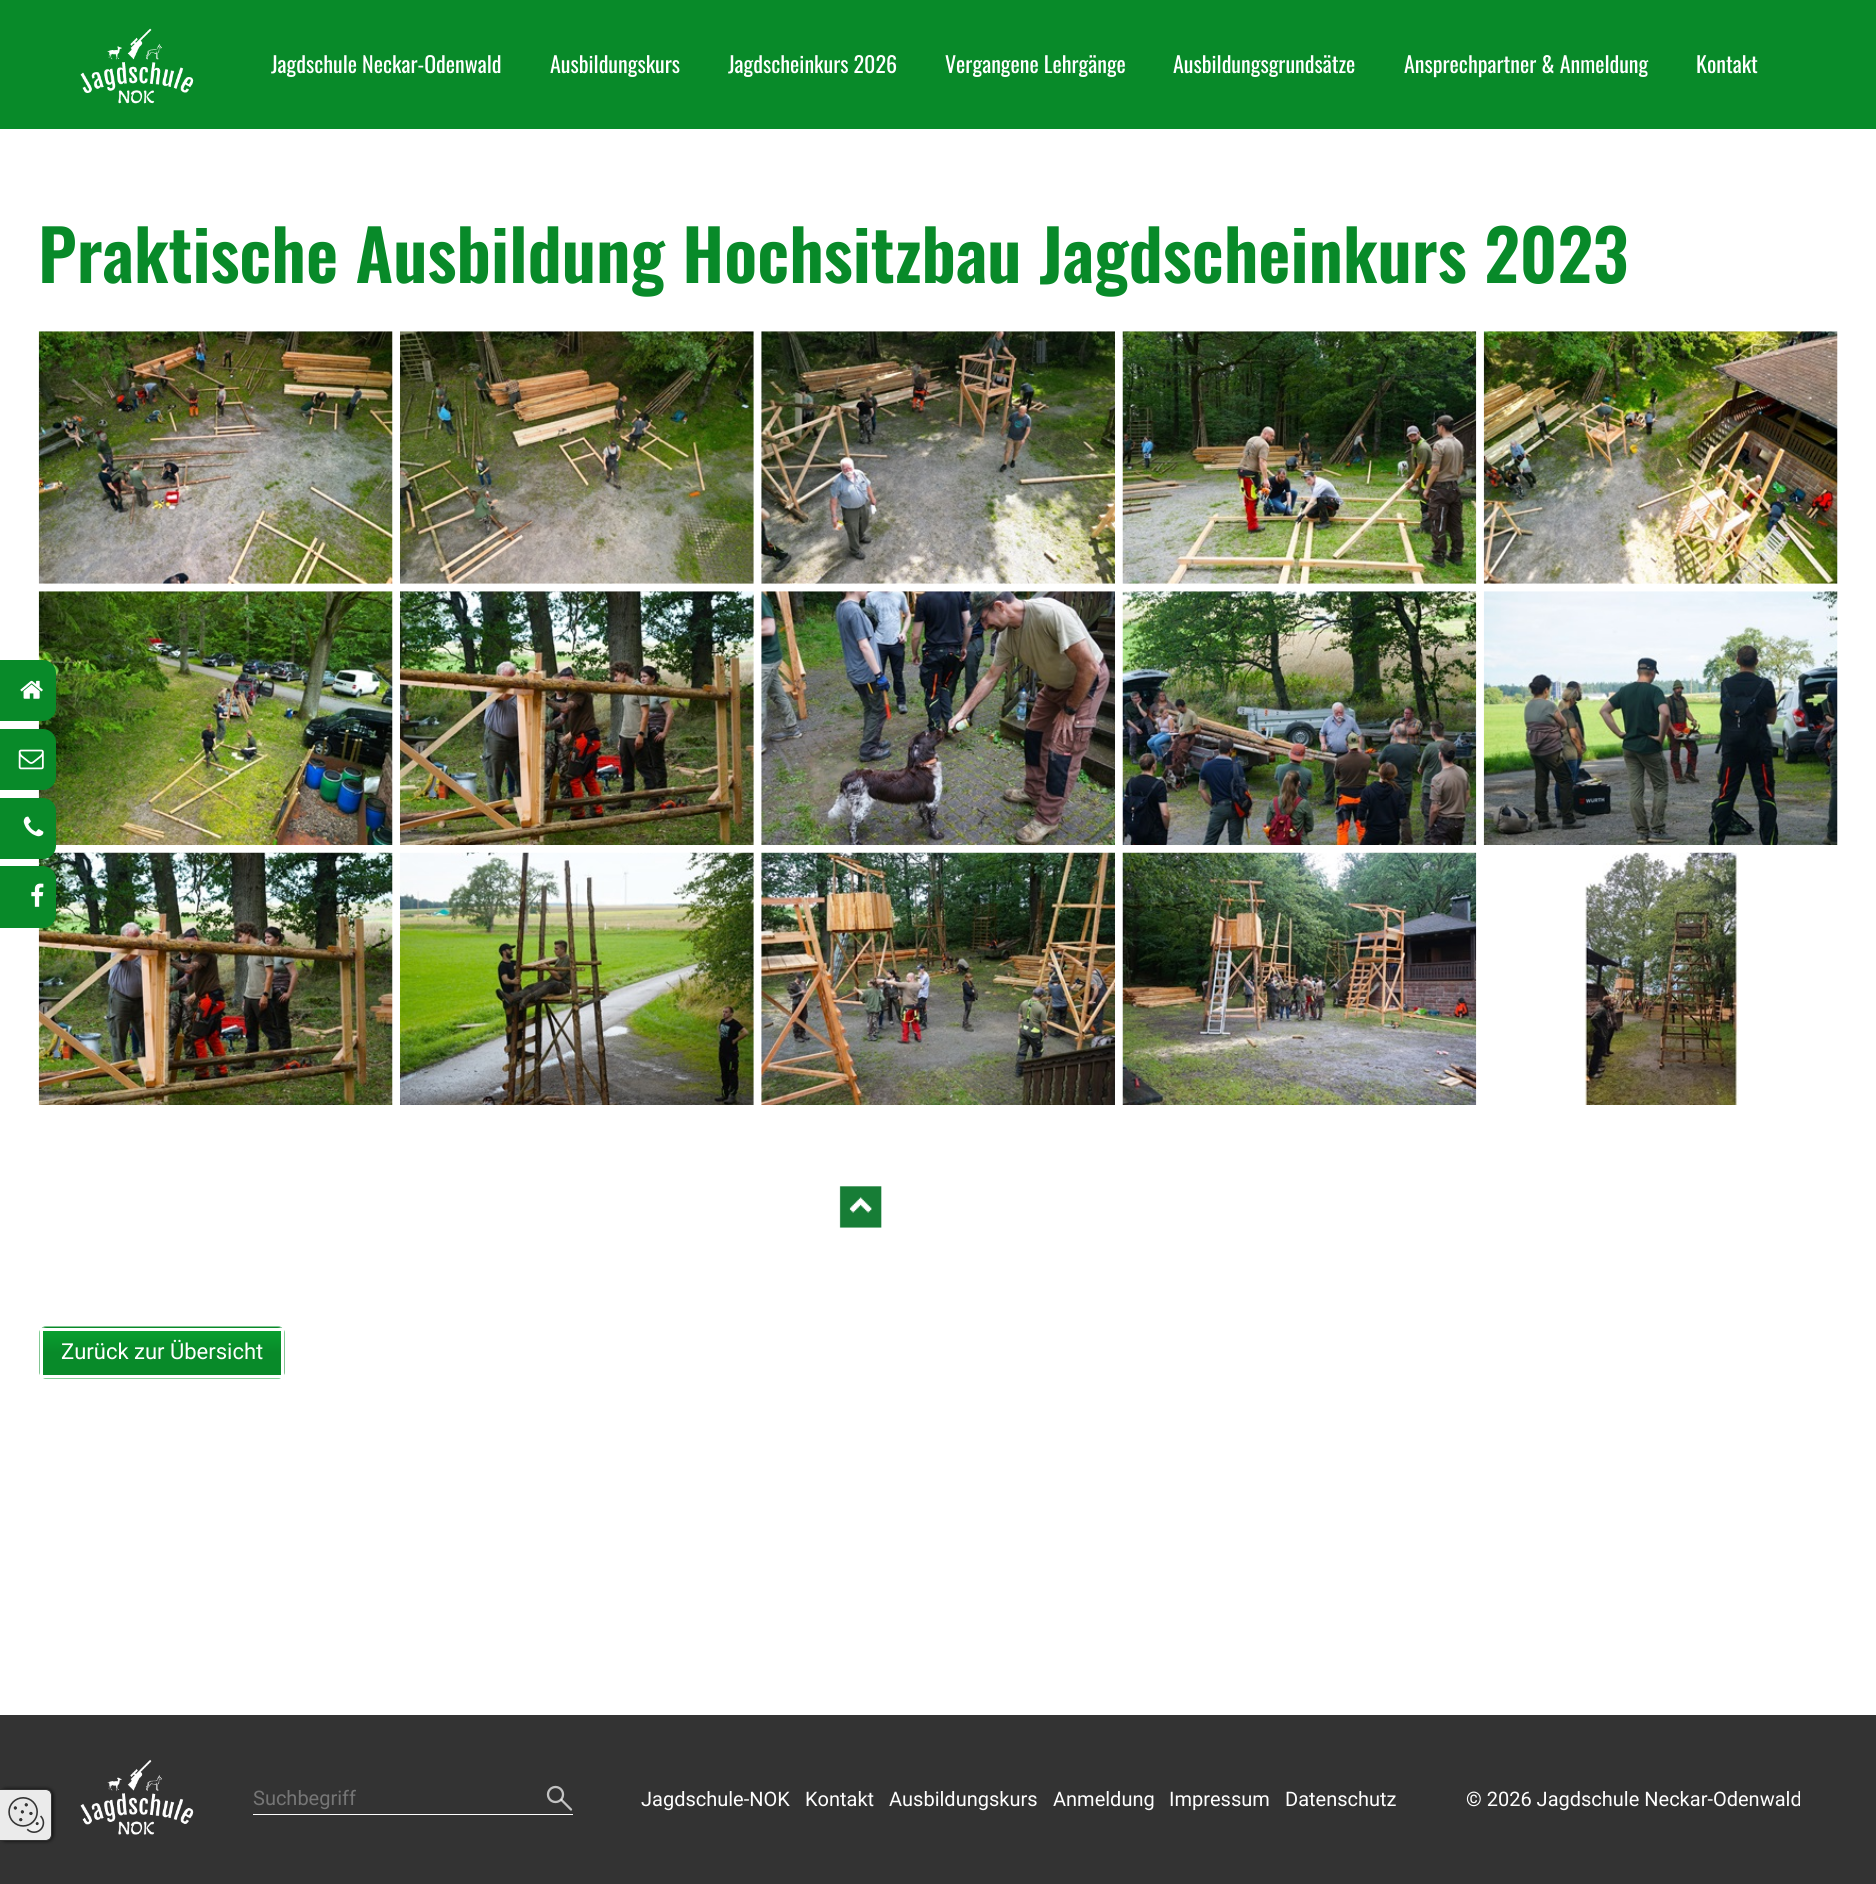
#include <cairo.h>
#include <math.h>
#include <stddef.h>

typedef struct { double x, y; const char *s; } line_t;

static void ink(cairo_t *ctx, unsigned color) {
    cairo_set_source_rgb(ctx, (color >> 16) / 255.0, (color >> 8 & 255) / 255.0, (color & 255) / 255.0);
}

static void round_path(cairo_t *ctx, double x, double y, double w, double h, double r) {
    cairo_new_sub_path(ctx);
    cairo_arc(ctx, x + w - r, y + h - r, r, 0, M_PI / 2);
    cairo_arc(ctx, x + r, y + h - r, r, M_PI / 2, M_PI);
    cairo_arc(ctx, x + r, y + r, r, M_PI, 1.5 * M_PI);
    cairo_arc(ctx, x + w - r, y + r, r, 1.5 * M_PI, 2 * M_PI);
    cairo_close_path(ctx);
}

static void blur_box(cairo_t *ctx, double x, double y, double w, double h, double r, double blur, double alpha) {
    cairo_push_group_with_content(ctx, CAIRO_CONTENT_ALPHA);
    cairo_set_operator(ctx, CAIRO_OPERATOR_SOURCE);
    for (int i = 15; i >= -15 && fmin(w, h) + blur * i / 3 > 0; i -= 2) {
        double e = blur * i / 6;
        cairo_set_source_rgba(ctx, 0, 0, 0, alpha * erfc((i - 1) / 8.5) / 2);
        round_path(ctx, x - e, y - e, w + 2 * e, h + 2 * e, fmax(0, fmin(r + e + blur * .6, fmin(w, h) / 2 + e)));
        cairo_fill(ctx);
    }
    cairo_pattern_t *soft = cairo_pop_group(ctx);
    cairo_mask(ctx, soft);
    cairo_pattern_destroy(soft);
}

static void paste(cairo_t *ctx, const char *path, double x, double y, double w, double h) {
    cairo_surface_t *image = cairo_image_surface_create_from_png(path);
    cairo_save(ctx);
    cairo_set_source_surface(ctx, image, x, y);
    cairo_rectangle(ctx, x, y, w, h);
    cairo_fill(ctx);
    cairo_restore(ctx);
    cairo_surface_destroy(image);
}

int main(void) {
    cairo_surface_t *surface = cairo_image_surface_create(CAIRO_FORMAT_RGB24, 1876, 1884);
    cairo_t *ctx = cairo_create(surface);
    cairo_font_options_t *options = cairo_font_options_create();
    cairo_font_options_set_hint_metrics(options, CAIRO_HINT_METRICS_OFF);
    cairo_font_options_set_hint_style(options, CAIRO_HINT_STYLE_NONE);
    cairo_set_font_options(ctx, options);
    cairo_set_miter_limit(ctx, 4);
    cairo_pattern_t *gradient;
    ink(ctx, 0xFFFFFF);
    cairo_paint(ctx);
    ink(ctx, 0x088A29);
    cairo_rectangle(ctx, 0, 0, 1876, 129);
    cairo_fill(ctx);
    paste(ctx, "media/1.png", 80, 28, 114, 76);
    cairo_select_font_face(ctx, "Oswald", CAIRO_FONT_SLANT_NORMAL, CAIRO_FONT_WEIGHT_NORMAL);
    cairo_set_font_size(ctx, 22);
    ink(ctx, 0xFFFFFF);
    {
        static const line_t items[] = {
            {271, 73, "Jagdschule Neckar-Odenwald"},
            {550, 73, "Ausbildungskurs"},
            {728, 73, "Jagdscheinkurs 2026"},
            {945, 73, "Vergangene Lehrgänge"},
            {1173, 73, "Ausbildungsgrundsätze"},
            {1404, 73, "Ansprechpartner & Anmeldung"},
            {1696, 73, "Kontakt"},
        };
        for (size_t i = 0; i < sizeof items / sizeof *items; i++) {
            cairo_move_to(ctx, items[i].x, items[i].y);
            cairo_show_text(ctx, items[i].s);
        }
    }
    cairo_select_font_face(ctx, "Oswald SemiBold", CAIRO_FONT_SLANT_NORMAL, CAIRO_FONT_WEIGHT_NORMAL);
    cairo_set_font_size(ctx, 70);
    ink(ctx, 0x088A29);
    cairo_move_to(ctx, 38, 283);
    cairo_show_text(ctx, "Praktische Ausbildung Hochsitzbau Jagdscheinkurs 2023");
    paste(ctx, "media/2.png", 38, 331, 355, 253);
    paste(ctx, "media/3.png", 400, 331, 354, 253);
    paste(ctx, "media/4.png", 761, 331, 354, 253);
    paste(ctx, "media/5.png", 1122, 331, 355, 253);
    paste(ctx, "media/6.png", 1483, 331, 355, 253);
    paste(ctx, "media/7.png", 38, 591, 355, 254);
    paste(ctx, "media/8.png", 400, 591, 354, 254);
    paste(ctx, "media/9.png", 761, 591, 354, 254);
    paste(ctx, "media/10.png", 1122, 591, 355, 254);
    paste(ctx, "media/11.png", 1483, 591, 355, 254);
    paste(ctx, "media/12.png", 38, 852, 355, 253);
    paste(ctx, "media/13.png", 400, 852, 354, 253);
    paste(ctx, "media/14.png", 761, 852, 354, 253);
    paste(ctx, "media/15.png", 1122, 852, 355, 253);
    paste(ctx, "media/16.png", 1584, 852, 155, 253);
    cairo_new_path(ctx);
    cairo_move_to(ctx, -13, 660);
    cairo_line_to(ctx, 43, 660);
    cairo_curve_to(ctx, 50, 660, 56, 666, 56, 673);
    cairo_line_to(ctx, 56, 708);
    cairo_curve_to(ctx, 56, 715, 50, 721, 43, 721);
    cairo_line_to(ctx, -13, 721);
    cairo_close_path(ctx);
    cairo_fill(ctx);
    paste(ctx, "media/17.png", 20, 680, 23, 19);
    cairo_new_path(ctx);
    cairo_move_to(ctx, -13, 729);
    cairo_line_to(ctx, 43, 729);
    cairo_curve_to(ctx, 50, 729, 56, 735, 56, 742);
    cairo_line_to(ctx, 56, 777);
    cairo_curve_to(ctx, 56, 784, 50, 790, 43, 790);
    cairo_line_to(ctx, -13, 790);
    cairo_close_path(ctx);
    cairo_fill(ctx);
    paste(ctx, "media/18.png", 18, 749, 26, 21);
    cairo_new_path(ctx);
    cairo_move_to(ctx, -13, 798);
    cairo_line_to(ctx, 43, 798);
    cairo_curve_to(ctx, 50, 798, 56, 804, 56, 811);
    cairo_line_to(ctx, 56, 846);
    cairo_curve_to(ctx, 56, 853, 50, 859, 43, 859);
    cairo_line_to(ctx, -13, 859);
    cairo_close_path(ctx);
    cairo_fill(ctx);
    paste(ctx, "media/19.png", 23, 816, 21, 21);
    cairo_new_path(ctx);
    cairo_move_to(ctx, -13, 866);
    cairo_line_to(ctx, 43, 866);
    cairo_curve_to(ctx, 50, 866, 56, 872, 56, 879);
    cairo_line_to(ctx, 56, 915);
    cairo_curve_to(ctx, 56, 922, 50, 928, 43, 928);
    cairo_line_to(ctx, -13, 928);
    cairo_close_path(ctx);
    cairo_fill(ctx);
    paste(ctx, "media/20.png", 31, 883, 13, 24);
    paste(ctx, "media/21.png", 839, 1186, 43, 42);
    cairo_save(ctx);
    round_path(ctx, 39, 1326, 246, 53, 8);
    cairo_clip(ctx);
    gradient = cairo_pattern_create_linear(162, 1278, 162, 1328);
    cairo_pattern_add_color_stop_rgba(gradient, 0, 0.035, 0.635, 0.188, 1);
    cairo_pattern_add_color_stop_rgba(gradient, 0.5, 0.031, 0.541, 0.161, 1);
    cairo_set_source(ctx, gradient);
    cairo_pattern_destroy(gradient);
    cairo_rectangle(ctx, 39, 1326, 246, 2);
    cairo_fill(ctx);
    gradient = cairo_pattern_create_linear(162, 1328, 162, 1378);
    cairo_pattern_add_color_stop_rgba(gradient, 0, 0.035, 0.635, 0.188, 1);
    cairo_pattern_add_color_stop_rgba(gradient, 0.5, 0.031, 0.541, 0.161, 1);
    cairo_set_source(ctx, gradient);
    cairo_pattern_destroy(gradient);
    cairo_rectangle(ctx, 39, 1330, 246, 45);
    cairo_fill(ctx);
    gradient = cairo_pattern_create_linear(162, 1378, 162, 1428);
    cairo_pattern_add_color_stop_rgba(gradient, 0, 0.035, 0.635, 0.188, 1);
    cairo_pattern_add_color_stop_rgba(gradient, 0.5, 0.031, 0.541, 0.161, 1);
    cairo_set_source(ctx, gradient);
    cairo_pattern_destroy(gradient);
    cairo_rectangle(ctx, 39, 1378, 246, 1);
    cairo_fill(ctx);
    cairo_restore(ctx);
    round_path(ctx, 39.5, 1326.5, 245, 52, 7.5);
    cairo_set_source_rgba(ctx, 1, 1, 1, 0.5);
    cairo_set_line_width(ctx, 1);
    cairo_stroke(ctx);
    cairo_rectangle(ctx, 41.5, 1329.5, 241, 47);
    ink(ctx, 0xFFFFFF);
    cairo_set_line_width(ctx, 3);
    cairo_stroke(ctx);
    cairo_select_font_face(ctx, "Roboto", CAIRO_FONT_SLANT_NORMAL, CAIRO_FONT_WEIGHT_NORMAL);
    cairo_set_font_size(ctx, 22);
    cairo_move_to(ctx, 61, 1359);
    cairo_show_text(ctx, "Zurück zur Übersicht");
    ink(ctx, 0x333333);
    cairo_rectangle(ctx, 0, 1715, 1876, 169);
    cairo_fill(ctx);
    ink(ctx, 0x000000);
    blur_box(ctx, 0, 1789, 53, 52, 6, 2, 0.8);
    ink(ctx, 0xEBEBEB);
    cairo_new_path(ctx);
    cairo_move_to(ctx, 51, 1795);
    cairo_line_to(ctx, 51, 1835);
    cairo_curve_to(ctx, 51, 1838, 49, 1840, 46, 1840);
    cairo_line_to(ctx, 0, 1840);
    cairo_line_to(ctx, 0, 1790);
    cairo_line_to(ctx, 46, 1790);
    cairo_curve_to(ctx, 49, 1790, 51, 1792, 51, 1795);
    cairo_close_path(ctx);
    cairo_fill(ctx);
    ink(ctx, 0x333333);
    cairo_set_fill_rule(ctx, CAIRO_FILL_RULE_EVEN_ODD);
    cairo_new_path(ctx);
    cairo_move_to(ctx, 52, 1795);
    cairo_line_to(ctx, 52, 1835);
    cairo_curve_to(ctx, 52, 1838, 50, 1841, 46, 1841);
    cairo_line_to(ctx, 0, 1841);
    cairo_line_to(ctx, 0, 1789);
    cairo_line_to(ctx, 46, 1789);
    cairo_curve_to(ctx, 50, 1789, 52, 1792, 52, 1795);
    cairo_close_path(ctx);
    cairo_move_to(ctx, 51, 1795);
    cairo_line_to(ctx, 51, 1835);
    cairo_curve_to(ctx, 51, 1838, 49, 1840, 46, 1840);
    cairo_line_to(ctx, 0, 1840);
    cairo_line_to(ctx, 0, 1790);
    cairo_line_to(ctx, 46, 1790);
    cairo_curve_to(ctx, 49, 1790, 51, 1792, 51, 1795);
    cairo_close_path(ctx);
    cairo_fill(ctx);
    paste(ctx, "media/22.png", 8, 1797, 37, 36);
    paste(ctx, "media/23.png", 80, 1759, 114, 76);
    ink(ctx, 0xFFFFFF);
    cairo_rectangle(ctx, 253, 1814, 320, 1);
    cairo_fill(ctx);
    cairo_set_font_size(ctx, 20);
    ink(ctx, 0x757575);
    cairo_move_to(ctx, 253, 1805);
    cairo_show_text(ctx, "Suchbegriff");
    cairo_new_path(ctx);
    cairo_arc(ctx, 555.5, 1794.5, 7.5, 0, 2 * M_PI);
    ink(ctx, 0xC2C2C2);
    cairo_set_line_width(ctx, 2.3);
    cairo_stroke(ctx);
    cairo_new_path(ctx);
    cairo_move_to(ctx, 561.5, 1800);
    cairo_line_to(ctx, 571, 1809.5);
    cairo_set_source_rgba(ctx, 1, 1, 1, 0.7);
    cairo_set_line_cap(ctx, CAIRO_LINE_CAP_ROUND);
    cairo_stroke(ctx);
    ink(ctx, 0xFFFFFF);
    {
        static const line_t items[] = {
            {641, 1806, "Jagdschule-NOK"},
            {805, 1806, "Kontakt"},
            {889, 1806, "Ausbildungskurs"},
            {1053, 1806, "Anmeldung"},
            {1169, 1806, "Impressum"},
            {1285, 1806, "Datenschutz"},
            {1466, 1806, "© 2026 Jagdschule Neckar-Odenwald"},
        };
        for (size_t i = 0; i < sizeof items / sizeof *items; i++) {
            cairo_move_to(ctx, items[i].x, items[i].y);
            cairo_show_text(ctx, items[i].s);
        }
    }
    cairo_surface_write_to_png(surface, "image.png");
    cairo_font_options_destroy(options);
    cairo_destroy(ctx);
    cairo_surface_destroy(surface);
    return 0;
}
